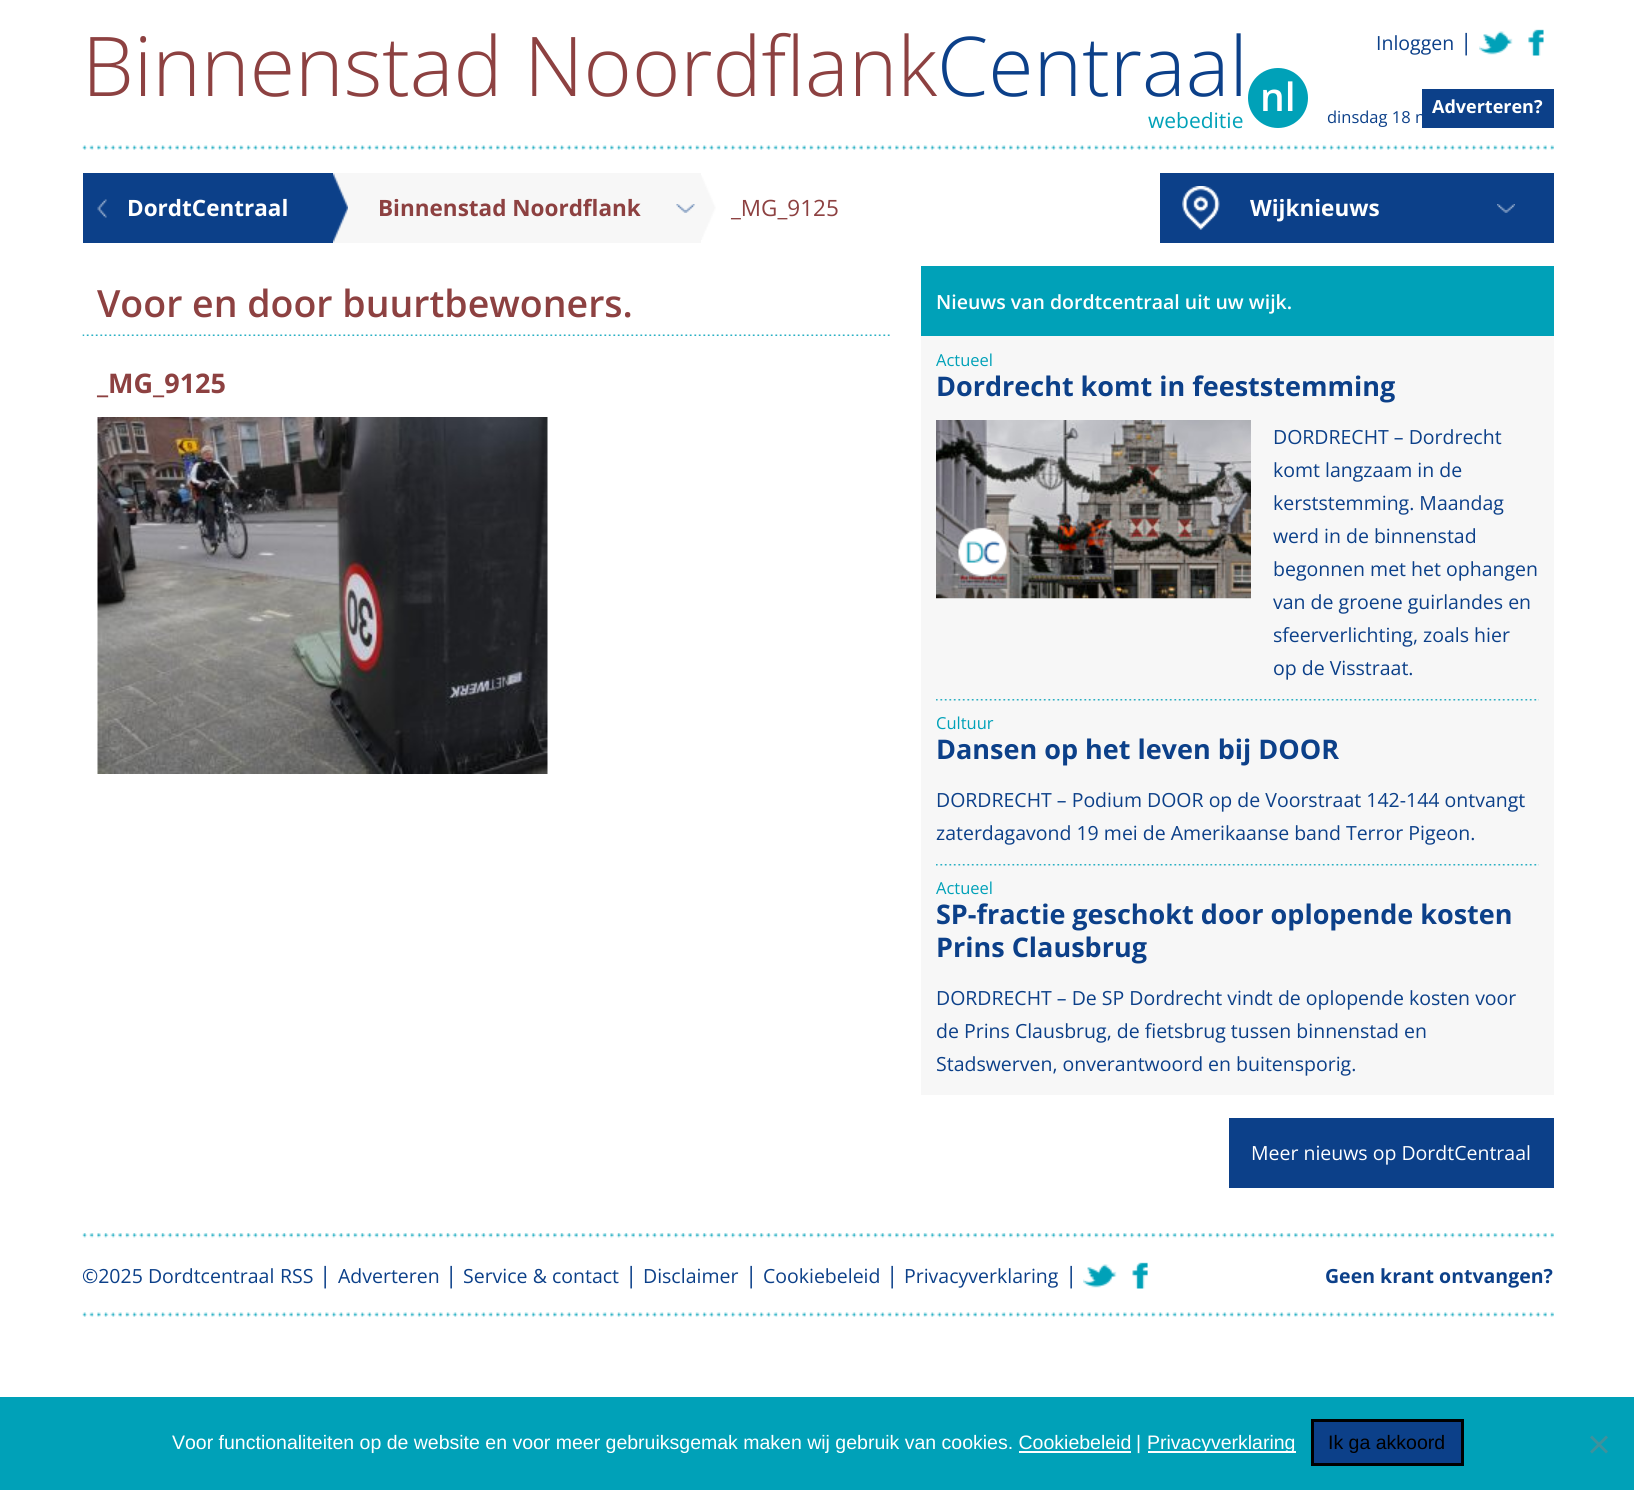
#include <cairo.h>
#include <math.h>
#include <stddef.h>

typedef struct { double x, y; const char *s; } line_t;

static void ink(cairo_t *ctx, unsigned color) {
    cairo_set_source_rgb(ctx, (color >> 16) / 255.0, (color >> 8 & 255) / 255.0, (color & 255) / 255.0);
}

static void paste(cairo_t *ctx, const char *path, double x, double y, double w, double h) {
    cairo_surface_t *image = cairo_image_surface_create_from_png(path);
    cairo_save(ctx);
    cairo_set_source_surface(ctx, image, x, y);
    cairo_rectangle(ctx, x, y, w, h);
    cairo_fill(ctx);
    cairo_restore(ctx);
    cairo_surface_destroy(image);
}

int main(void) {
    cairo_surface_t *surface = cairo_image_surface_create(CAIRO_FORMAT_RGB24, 1634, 1490);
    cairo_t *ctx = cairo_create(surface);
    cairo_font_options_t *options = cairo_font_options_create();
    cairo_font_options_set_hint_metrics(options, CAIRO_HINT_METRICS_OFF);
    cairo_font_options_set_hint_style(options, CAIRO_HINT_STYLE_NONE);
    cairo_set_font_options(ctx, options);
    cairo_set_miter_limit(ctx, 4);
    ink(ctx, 0xFFFFFF);
    cairo_paint(ctx);
    paste(ctx, "media/1.png", 82, 145, 1472, 5);
    cairo_select_font_face(ctx, "Open Sans Light", CAIRO_FONT_SLANT_NORMAL, CAIRO_FONT_WEIGHT_NORMAL);
    cairo_set_font_size(ctx, 82.5);
    ink(ctx, 0x8D4141);
    cairo_move_to(ctx, 82, 96);
    cairo_show_text(ctx, "Binnenstad Noordflank");
    ink(ctx, 0x0C4089);
    cairo_move_to(ctx, 937, 96);
    cairo_show_text(ctx, "Centraal");
    ink(ctx, 0x00A1B8);
    cairo_new_path(ctx);
    cairo_arc(ctx, 1278, 98, 30, 0, 2 * M_PI);
    cairo_fill(ctx);
    cairo_select_font_face(ctx, "Open Sans SemiBold", CAIRO_FONT_SLANT_NORMAL, CAIRO_FONT_WEIGHT_NORMAL);
    cairo_set_font_size(ctx, 39);
    ink(ctx, 0xFFFFFF);
    cairo_move_to(ctx, 1260, 111);
    cairo_show_text(ctx, "nl");
    cairo_select_font_face(ctx, "Open Sans", CAIRO_FONT_SLANT_NORMAL, CAIRO_FONT_WEIGHT_NORMAL);
    cairo_set_font_size(ctx, 21);
    ink(ctx, 0x00A1B8);
    cairo_move_to(ctx, 1148, 128);
    cairo_show_text(ctx, "webeditie");
    cairo_set_font_size(ctx, 19.5);
    ink(ctx, 0x0C4089);
    cairo_move_to(ctx, 1376, 50);
    cairo_show_text(ctx, "Inloggen");
    cairo_set_font_size(ctx, 22.5);
    cairo_move_to(ctx, 1460, 50);
    cairo_show_text(ctx, "|");
    paste(ctx, "media/2.png", 1479, 31, 34, 24);
    paste(ctx, "media/3.png", 1528, 29, 16, 27);
    cairo_rectangle(ctx, 1422, 89, 132, 39);
    cairo_fill(ctx);
    cairo_select_font_face(ctx, "Open Sans", CAIRO_FONT_SLANT_NORMAL, CAIRO_FONT_WEIGHT_BOLD);
    cairo_set_font_size(ctx, 18);
    ink(ctx, 0xFFFFFF);
    cairo_move_to(ctx, 1432, 113);
    cairo_show_text(ctx, "Adverteren?");
    cairo_select_font_face(ctx, "Open Sans", CAIRO_FONT_SLANT_NORMAL, CAIRO_FONT_WEIGHT_NORMAL);
    cairo_set_font_size(ctx, 16.5);
    ink(ctx, 0x0C4089);
    cairo_move_to(ctx, 1327, 123);
    cairo_show_text(ctx, "dinsdag 18 n");
    cairo_rectangle(ctx, 83, 173, 250, 70);
    cairo_fill(ctx);
    paste(ctx, "media/4.png", 97, 199, 10, 19);
    cairo_select_font_face(ctx, "Open Sans", CAIRO_FONT_SLANT_NORMAL, CAIRO_FONT_WEIGHT_BOLD);
    cairo_set_font_size(ctx, 22.5);
    ink(ctx, 0xFFFFFF);
    cairo_move_to(ctx, 127, 216);
    cairo_show_text(ctx, "DordtCentraal");
    ink(ctx, 0xF7F7F7);
    cairo_rectangle(ctx, 333, 173, 368, 70);
    cairo_fill(ctx);
    paste(ctx, "media/5.png", 333, 173, 15, 70);
    ink(ctx, 0x8D4141);
    cairo_move_to(ctx, 378, 216);
    cairo_show_text(ctx, "Binnenstad Noordflank");
    paste(ctx, "media/6.png", 676, 204, 19, 9);
    paste(ctx, "media/7.png", 701, 175, 15, 65);
    cairo_select_font_face(ctx, "Open Sans", CAIRO_FONT_SLANT_NORMAL, CAIRO_FONT_WEIGHT_NORMAL);
    cairo_move_to(ctx, 731, 216);
    cairo_show_text(ctx, "_MG_9125");
    ink(ctx, 0x0C4089);
    cairo_rectangle(ctx, 1160, 173, 394, 70);
    cairo_fill(ctx);
    paste(ctx, "media/8.png", 1497, 204, 18, 9);
    paste(ctx, "media/9.png", 1182, 186, 38, 44);
    cairo_select_font_face(ctx, "Open Sans", CAIRO_FONT_SLANT_NORMAL, CAIRO_FONT_WEIGHT_BOLD);
    ink(ctx, 0xFFFFFF);
    cairo_move_to(ctx, 1250, 216);
    cairo_show_text(ctx, "Wijknieuws");
    paste(ctx, "media/10.png", 82, 334, 808, 2);
    cairo_select_font_face(ctx, "Open Sans SemiBold", CAIRO_FONT_SLANT_NORMAL, CAIRO_FONT_WEIGHT_NORMAL);
    cairo_set_font_size(ctx, 37.5);
    ink(ctx, 0x8D4141);
    cairo_move_to(ctx, 97, 317);
    cairo_show_text(ctx, "Voor en door buurtbewoners.");
    cairo_select_font_face(ctx, "Open Sans", CAIRO_FONT_SLANT_NORMAL, CAIRO_FONT_WEIGHT_BOLD);
    cairo_set_font_size(ctx, 27);
    cairo_move_to(ctx, 97, 393);
    cairo_show_text(ctx, "_MG_9125");
    paste(ctx, "media/11.png", 97, 417, 451, 357);
    ink(ctx, 0xF7F7F7);
    cairo_rectangle(ctx, 921, 336, 633, 759);
    cairo_fill(ctx);
    ink(ctx, 0x00A1B8);
    cairo_rectangle(ctx, 921, 266, 633, 70);
    cairo_fill(ctx);
    cairo_select_font_face(ctx, "Open Sans SemiBold", CAIRO_FONT_SLANT_NORMAL, CAIRO_FONT_WEIGHT_NORMAL);
    cairo_set_font_size(ctx, 19.5);
    ink(ctx, 0xFFFFFF);
    cairo_move_to(ctx, 936, 309);
    cairo_show_text(ctx, "Nieuws van dordtcentraal uit uw wijk.");
    cairo_select_font_face(ctx, "Open Sans", CAIRO_FONT_SLANT_NORMAL, CAIRO_FONT_WEIGHT_NORMAL);
    cairo_set_font_size(ctx, 16.5);
    ink(ctx, 0x00A1B8);
    cairo_move_to(ctx, 936, 366);
    cairo_show_text(ctx, "Actueel");
    cairo_select_font_face(ctx, "Open Sans", CAIRO_FONT_SLANT_NORMAL, CAIRO_FONT_WEIGHT_BOLD);
    cairo_set_font_size(ctx, 27);
    ink(ctx, 0x0C4089);
    cairo_move_to(ctx, 936, 396);
    cairo_show_text(ctx, "Dordrecht komt in feeststemming");
    paste(ctx, "media/12.png", 936, 420, 315, 179);
    paste(ctx, "media/13.png", 958, 527, 49, 50);
    cairo_select_font_face(ctx, "Open Sans", CAIRO_FONT_SLANT_NORMAL, CAIRO_FONT_WEIGHT_NORMAL);
    cairo_set_font_size(ctx, 19.5);
    {
        static const line_t items[] = {
            {1273, 444, "DORDRECHT – Dordrecht"},
            {1273, 477, "komt langzaam in de"},
            {1273, 510, "kerststemming. Maandag"},
            {1273, 543, "werd in de binnenstad"},
            {1273, 576, "begonnen met het ophangen"},
            {1273, 609, "van de groene guirlandes en"},
            {1273, 642, "sfeerverlichting, zoals hier"},
            {1273, 675, "op de Visstraat."},
        };
        for (size_t i = 0; i < sizeof items / sizeof *items; i++) {
            cairo_move_to(ctx, items[i].x, items[i].y);
            cairo_show_text(ctx, items[i].s);
        }
    }
    paste(ctx, "media/14.png", 936, 699, 603, 2);
    cairo_set_font_size(ctx, 16.5);
    ink(ctx, 0x00A1B8);
    cairo_move_to(ctx, 936, 729);
    cairo_show_text(ctx, "Cultuur");
    cairo_select_font_face(ctx, "Open Sans", CAIRO_FONT_SLANT_NORMAL, CAIRO_FONT_WEIGHT_BOLD);
    cairo_set_font_size(ctx, 27);
    ink(ctx, 0x0C4089);
    cairo_move_to(ctx, 936, 759);
    cairo_show_text(ctx, "Dansen op het leven bij DOOR");
    cairo_select_font_face(ctx, "Open Sans", CAIRO_FONT_SLANT_NORMAL, CAIRO_FONT_WEIGHT_NORMAL);
    cairo_set_font_size(ctx, 19.5);
    cairo_move_to(ctx, 936, 807);
    cairo_show_text(ctx, "DORDRECHT – Podium DOOR op de Voorstraat 142-144 ontvangt");
    cairo_move_to(ctx, 936, 840);
    cairo_show_text(ctx, "zaterdagavond 19 mei de Amerikaanse band Terror Pigeon.");
    paste(ctx, "media/14.png", 936, 864, 603, 2);
    cairo_set_font_size(ctx, 16.5);
    ink(ctx, 0x00A1B8);
    cairo_move_to(ctx, 936, 894);
    cairo_show_text(ctx, "Actueel");
    cairo_select_font_face(ctx, "Open Sans", CAIRO_FONT_SLANT_NORMAL, CAIRO_FONT_WEIGHT_BOLD);
    cairo_set_font_size(ctx, 27);
    ink(ctx, 0x0C4089);
    cairo_move_to(ctx, 936, 924);
    cairo_show_text(ctx, "SP-fractie geschokt door oplopende kosten");
    cairo_move_to(ctx, 936, 957);
    cairo_show_text(ctx, "Prins Clausbrug");
    cairo_select_font_face(ctx, "Open Sans", CAIRO_FONT_SLANT_NORMAL, CAIRO_FONT_WEIGHT_NORMAL);
    cairo_set_font_size(ctx, 19.5);
    {
        static const line_t items[] = {
            {936, 1005, "DORDRECHT – De SP Dordrecht vindt de oplopende kosten voor"},
            {936, 1038, "de Prins Clausbrug, de fietsbrug tussen binnenstad en"},
            {936, 1071, "Stadswerven, onverantwoord en buitensporig."},
        };
        for (size_t i = 0; i < sizeof items / sizeof *items; i++) {
            cairo_move_to(ctx, items[i].x, items[i].y);
            cairo_show_text(ctx, items[i].s);
        }
    }
    cairo_rectangle(ctx, 1229, 1118, 325, 70);
    cairo_fill(ctx);
    ink(ctx, 0xFFFFFF);
    cairo_move_to(ctx, 1251, 1160);
    cairo_show_text(ctx, "Meer nieuws op DordtCentraal");
    paste(ctx, "media/15.png", 82, 1233, 1472, 5);
    paste(ctx, "media/16.png", 82, 1312, 1472, 5);
    ink(ctx, 0x0C4089);
    cairo_move_to(ctx, 82, 1283);
    cairo_show_text(ctx, "©2025 Dordtcentraal");
    cairo_move_to(ctx, 280, 1283);
    cairo_show_text(ctx, "RSS");
    cairo_set_font_size(ctx, 22.5);
    cairo_move_to(ctx, 319, 1283);
    cairo_show_text(ctx, "|");
    cairo_set_font_size(ctx, 19.5);
    cairo_move_to(ctx, 338, 1283);
    cairo_show_text(ctx, "Adverteren");
    cairo_set_font_size(ctx, 22.5);
    cairo_move_to(ctx, 445, 1283);
    cairo_show_text(ctx, "|");
    cairo_set_font_size(ctx, 19.5);
    cairo_move_to(ctx, 463, 1283);
    cairo_show_text(ctx, "Service & contact");
    cairo_set_font_size(ctx, 22.5);
    cairo_move_to(ctx, 625, 1283);
    cairo_show_text(ctx, "|");
    cairo_set_font_size(ctx, 19.5);
    cairo_move_to(ctx, 643, 1283);
    cairo_show_text(ctx, "Disclaimer");
    cairo_set_font_size(ctx, 22.5);
    cairo_move_to(ctx, 745, 1283);
    cairo_show_text(ctx, "|");
    cairo_set_font_size(ctx, 19.5);
    cairo_move_to(ctx, 763, 1283);
    cairo_show_text(ctx, "Cookiebeleid");
    cairo_set_font_size(ctx, 22.5);
    cairo_move_to(ctx, 886, 1283);
    cairo_show_text(ctx, "|");
    cairo_set_font_size(ctx, 19.5);
    cairo_move_to(ctx, 904, 1283);
    cairo_show_text(ctx, "Privacyverklaring");
    cairo_set_font_size(ctx, 22.5);
    cairo_move_to(ctx, 1065, 1283);
    cairo_show_text(ctx, "|");
    paste(ctx, "media/2.png", 1083, 1264, 34, 24);
    paste(ctx, "media/17.png", 1132, 1262, 16, 27);
    cairo_select_font_face(ctx, "Open Sans", CAIRO_FONT_SLANT_NORMAL, CAIRO_FONT_WEIGHT_BOLD);
    cairo_set_font_size(ctx, 19.5);
    cairo_move_to(ctx, 1325, 1283);
    cairo_show_text(ctx, "Geen krant ontvangen?");
    ink(ctx, 0x00A1B8);
    cairo_rectangle(ctx, 0, 1397, 1634, 93);
    cairo_fill(ctx);
    cairo_select_font_face(ctx, "Liberation Sans", CAIRO_FONT_SLANT_NORMAL, CAIRO_FONT_WEIGHT_NORMAL);
    ink(ctx, 0xFFFFFF);
    cairo_move_to(ctx, 172, 1449);
    cairo_show_text(ctx, "Voor functionaliteiten op de website en voor meer gebruiksgemak maken wij gebruik van cookies. Cookiebeleid");
    cairo_move_to(ctx, 1136, 1449);
    cairo_show_text(ctx, "|");
    cairo_rectangle(ctx, 1148, 1451, 148, 2);
    cairo_fill(ctx);
    cairo_move_to(ctx, 1147, 1449);
    cairo_show_text(ctx, "Privacyverklaring");
    cairo_rectangle(ctx, 1019, 1451, 112, 2);
    cairo_fill(ctx);
    ink(ctx, 0x0C4089);
    cairo_rectangle(ctx, 1312.5, 1420.5, 150, 44);
    cairo_fill_preserve(ctx);
    ink(ctx, 0x000000);
    cairo_set_line_width(ctx, 3);
    cairo_stroke(ctx);
    cairo_move_to(ctx, 1328, 1449);
    cairo_show_text(ctx, "Ik ga akkoord");
    ink(ctx, 0x40919C);
    cairo_new_path(ctx);
    cairo_move_to(ctx, 1606, 1435.5);
    cairo_line_to(ctx, 1608, 1437.5);
    cairo_line_to(ctx, 1592, 1453.5);
    cairo_line_to(ctx, 1590, 1451.5);
    cairo_close_path(ctx);
    cairo_fill(ctx);
    cairo_new_path(ctx);
    cairo_move_to(ctx, 1590, 1437.5);
    cairo_line_to(ctx, 1592, 1435.5);
    cairo_line_to(ctx, 1608, 1451.5);
    cairo_line_to(ctx, 1606, 1453.5);
    cairo_close_path(ctx);
    cairo_fill(ctx);
    cairo_surface_write_to_png(surface, "image.png");
    cairo_font_options_destroy(options);
    cairo_destroy(ctx);
    cairo_surface_destroy(surface);
    return 0;
}
